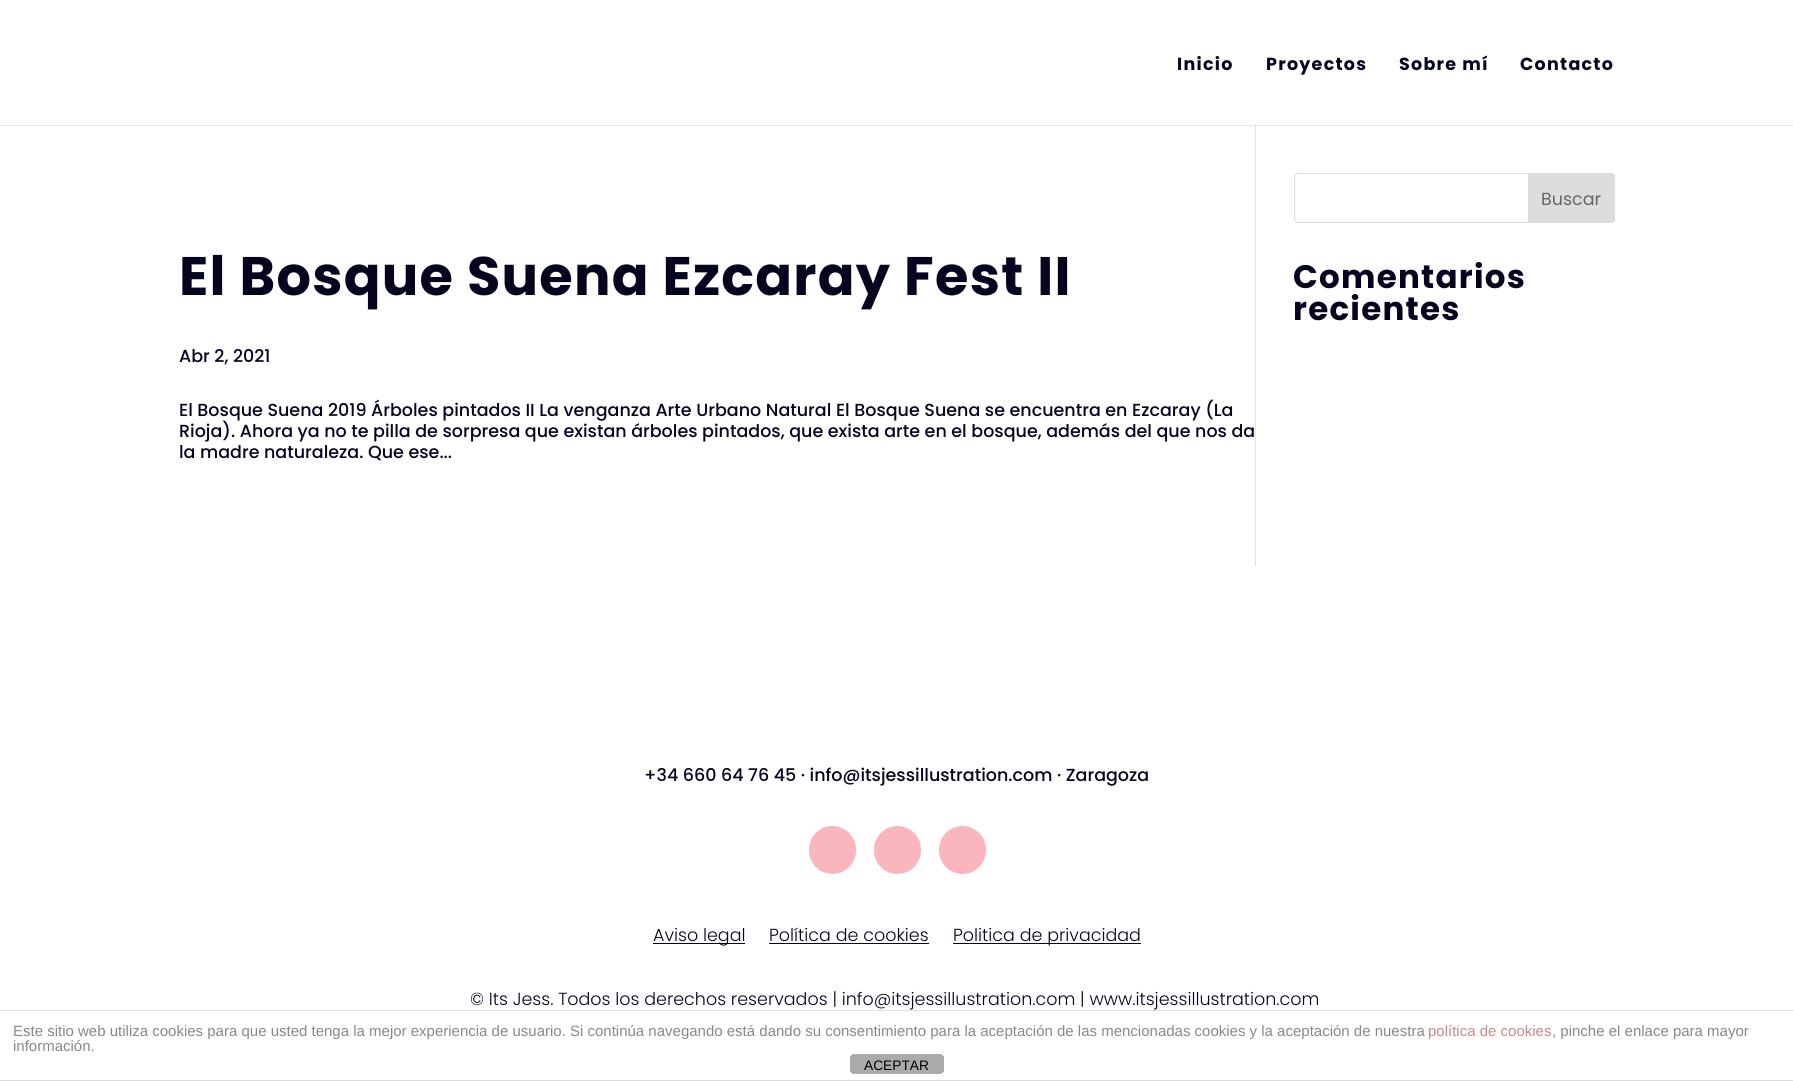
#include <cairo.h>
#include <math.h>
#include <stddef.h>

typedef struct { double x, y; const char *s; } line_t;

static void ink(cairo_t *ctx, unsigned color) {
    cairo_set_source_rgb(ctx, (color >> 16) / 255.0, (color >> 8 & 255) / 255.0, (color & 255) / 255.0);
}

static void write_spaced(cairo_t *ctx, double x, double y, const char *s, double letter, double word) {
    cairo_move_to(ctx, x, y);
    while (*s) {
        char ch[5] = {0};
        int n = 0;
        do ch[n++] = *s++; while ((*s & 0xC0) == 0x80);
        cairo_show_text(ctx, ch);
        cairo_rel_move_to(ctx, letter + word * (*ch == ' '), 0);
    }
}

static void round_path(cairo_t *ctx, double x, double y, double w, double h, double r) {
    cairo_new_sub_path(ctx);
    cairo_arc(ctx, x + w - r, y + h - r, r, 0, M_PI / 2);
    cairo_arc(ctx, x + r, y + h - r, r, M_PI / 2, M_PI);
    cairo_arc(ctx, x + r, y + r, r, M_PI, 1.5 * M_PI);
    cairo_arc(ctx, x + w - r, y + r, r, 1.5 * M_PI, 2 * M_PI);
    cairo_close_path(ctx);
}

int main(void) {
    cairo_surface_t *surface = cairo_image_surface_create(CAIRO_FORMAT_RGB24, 1793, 1081);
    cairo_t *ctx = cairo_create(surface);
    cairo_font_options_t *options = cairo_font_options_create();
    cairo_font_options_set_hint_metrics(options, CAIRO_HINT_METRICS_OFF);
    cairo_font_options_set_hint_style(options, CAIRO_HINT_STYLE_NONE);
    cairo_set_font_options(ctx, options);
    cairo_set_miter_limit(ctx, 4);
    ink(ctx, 0xFFFFFF);
    cairo_paint(ctx);
    ink(ctx, 0xE2E2E2);
    cairo_rectangle(ctx, 1255, 125, 1, 441);
    cairo_fill(ctx);
    cairo_set_source_rgba(ctx, 0, 0, 0, 0.1);
    cairo_new_path(ctx);
    cairo_move_to(ctx, 0, 125);
    cairo_line_to(ctx, 0, 126);
    cairo_line_to(ctx, 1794, 126);
    cairo_line_to(ctx, 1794, 1);
    cairo_line_to(ctx, 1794, 125);
    cairo_close_path(ctx);
    cairo_fill(ctx);
    cairo_select_font_face(ctx, "Poppins", CAIRO_FONT_SLANT_NORMAL, CAIRO_FONT_WEIGHT_BOLD);
    cairo_set_font_size(ctx, 17.5);
    ink(ctx, 0x04041F);
    {
        static const line_t items[] = {
            {1177, 70, "Inicio"},
            {1266, 70, "Proyectos"},
            {1399, 70, "Sobre mí"},
            {1520, 70, "Contacto"},
        };
        for (size_t i = 0; i < sizeof items / sizeof *items; i++) {
            write_spaced(ctx, items[i].x, items[i].y, items[i].s, 1.25, 0);
        }
    }
    cairo_set_font_size(ctx, 54.2);
    write_spaced(ctx, 179, 295, "El Bosque Suena Ezcaray Fest II", 1.25, 0);
    cairo_select_font_face(ctx, "Poppins Medium", CAIRO_FONT_SLANT_NORMAL, CAIRO_FONT_WEIGHT_NORMAL);
    cairo_set_font_size(ctx, 17.5);
    {
        static const line_t items[] = {
            {179, 362, "Abr 2, 2021"},
            {179, 416, "El Bosque Suena 2019 Árboles pintados II La venganza Arte Urbano Natural El Bosque Suena se encuentra en Ezcaray (La"},
            {179, 437, "Rioja). Ahora ya no te pilla de sorpresa que existan árboles pintados, que exista arte en el bosque, además del que nos da"},
            {179, 458, "la madre naturaleza. Que ese..."},
        };
        for (size_t i = 0; i < sizeof items / sizeof *items; i++) {
            cairo_move_to(ctx, items[i].x, items[i].y);
            cairo_show_text(ctx, items[i].s);
        }
    }
    round_path(ctx, 1294.5, 173.5, 320, 49, 3.5);
    ink(ctx, 0xDDDDDD);
    cairo_set_line_width(ctx, 1);
    cairo_stroke(ctx);
    cairo_new_path(ctx);
    cairo_move_to(ctx, 1528.5, 173.5);
    cairo_line_to(ctx, 1611, 173.5);
    cairo_curve_to(ctx, 1613, 173.5, 1614.5, 175, 1614.5, 177);
    cairo_line_to(ctx, 1614.5, 219);
    cairo_curve_to(ctx, 1614.5, 221, 1613, 222.5, 1611, 222.5);
    cairo_line_to(ctx, 1528.5, 222.5);
    cairo_close_path(ctx);
    cairo_fill_preserve(ctx);
    cairo_stroke(ctx);
    cairo_select_font_face(ctx, "Poppins", CAIRO_FONT_SLANT_NORMAL, CAIRO_FONT_WEIGHT_NORMAL);
    ink(ctx, 0x666666);
    cairo_move_to(ctx, 1541, 205);
    cairo_show_text(ctx, "Buscar");
    cairo_select_font_face(ctx, "Poppins", CAIRO_FONT_SLANT_NORMAL, CAIRO_FONT_WEIGHT_BOLD);
    cairo_set_font_size(ctx, 32.5);
    ink(ctx, 0x04041F);
    write_spaced(ctx, 1293, 288, "Comentarios", 1.25, 0);
    write_spaced(ctx, 1293, 320, "recientes", 1.25, 0);
    cairo_select_font_face(ctx, "Poppins Medium", CAIRO_FONT_SLANT_NORMAL, CAIRO_FONT_WEIGHT_NORMAL);
    cairo_set_font_size(ctx, 17.5);
    cairo_move_to(ctx, 644, 781);
    cairo_show_text(ctx, "+34 660 64 76 45 · info@itsjessillustration.com · Zaragoza");
    ink(ctx, 0xFBB5BD);
    round_path(ctx, 809, 826, 47, 48, 23.5);
    cairo_fill(ctx);
    round_path(ctx, 874, 826, 47, 48, 23.5);
    cairo_fill(ctx);
    round_path(ctx, 939, 826, 47, 48, 23.5);
    cairo_fill(ctx);
    ink(ctx, 0x04041F);
    cairo_rectangle(ctx, 653, 943, 92, 1);
    cairo_fill(ctx);
    cairo_select_font_face(ctx, "Poppins Light", CAIRO_FONT_SLANT_NORMAL, CAIRO_FONT_WEIGHT_NORMAL);
    cairo_move_to(ctx, 653, 941);
    cairo_show_text(ctx, "Aviso legal");
    cairo_move_to(ctx, 769, 941);
    cairo_show_text(ctx, "Política de cookies");
    cairo_rectangle(ctx, 769, 943, 160, 1);
    cairo_fill(ctx);
    cairo_rectangle(ctx, 953, 943, 188, 1);
    cairo_fill(ctx);
    cairo_move_to(ctx, 953, 941);
    cairo_show_text(ctx, "Politica de privacidad");
    cairo_move_to(ctx, 470, 1005);
    cairo_show_text(ctx, "© Its Jess. Todos los derechos reservados | info@itsjessillustration.com | www.itsjessillustration.com");
    ink(ctx, 0xDDDDDD);
    cairo_rectangle(ctx, 0, 1010, 1793, 1);
    cairo_fill(ctx);
    cairo_rectangle(ctx, 0, 1080, 1793, 1);
    cairo_fill(ctx);
    cairo_select_font_face(ctx, "Liberation Sans", CAIRO_FONT_SLANT_NORMAL, CAIRO_FONT_WEIGHT_NORMAL);
    cairo_set_font_size(ctx, 15);
    ink(ctx, 0x888888);
    cairo_move_to(ctx, 13, 1036);
    cairo_show_text(ctx, "Este sitio web utiliza cookies para que usted tenga la mejor experiencia de usuario. Si continúa navegando está dando su consentimiento para la aceptación de las mencionadas cookies y la aceptación de nuestra");
    ink(ctx, 0xCC8888);
    cairo_move_to(ctx, 1428, 1036);
    cairo_show_text(ctx, "política de cookies");
    ink(ctx, 0x888888);
    cairo_move_to(ctx, 1552, 1036);
    cairo_show_text(ctx, ", pinche el enlace para mayor");
    cairo_move_to(ctx, 13, 1051);
    cairo_show_text(ctx, "información.");
    ink(ctx, 0xAAAAAA);
    round_path(ctx, 850, 1054, 94, 20, 4);
    cairo_fill(ctx);
    cairo_set_font_size(ctx, 13.75);
    ink(ctx, 0x000000);
    cairo_move_to(ctx, 864, 1070);
    cairo_show_text(ctx, "ACEPTAR");
    cairo_surface_write_to_png(surface, "image.png");
    cairo_font_options_destroy(options);
    cairo_destroy(ctx);
    cairo_surface_destroy(surface);
    return 0;
}
